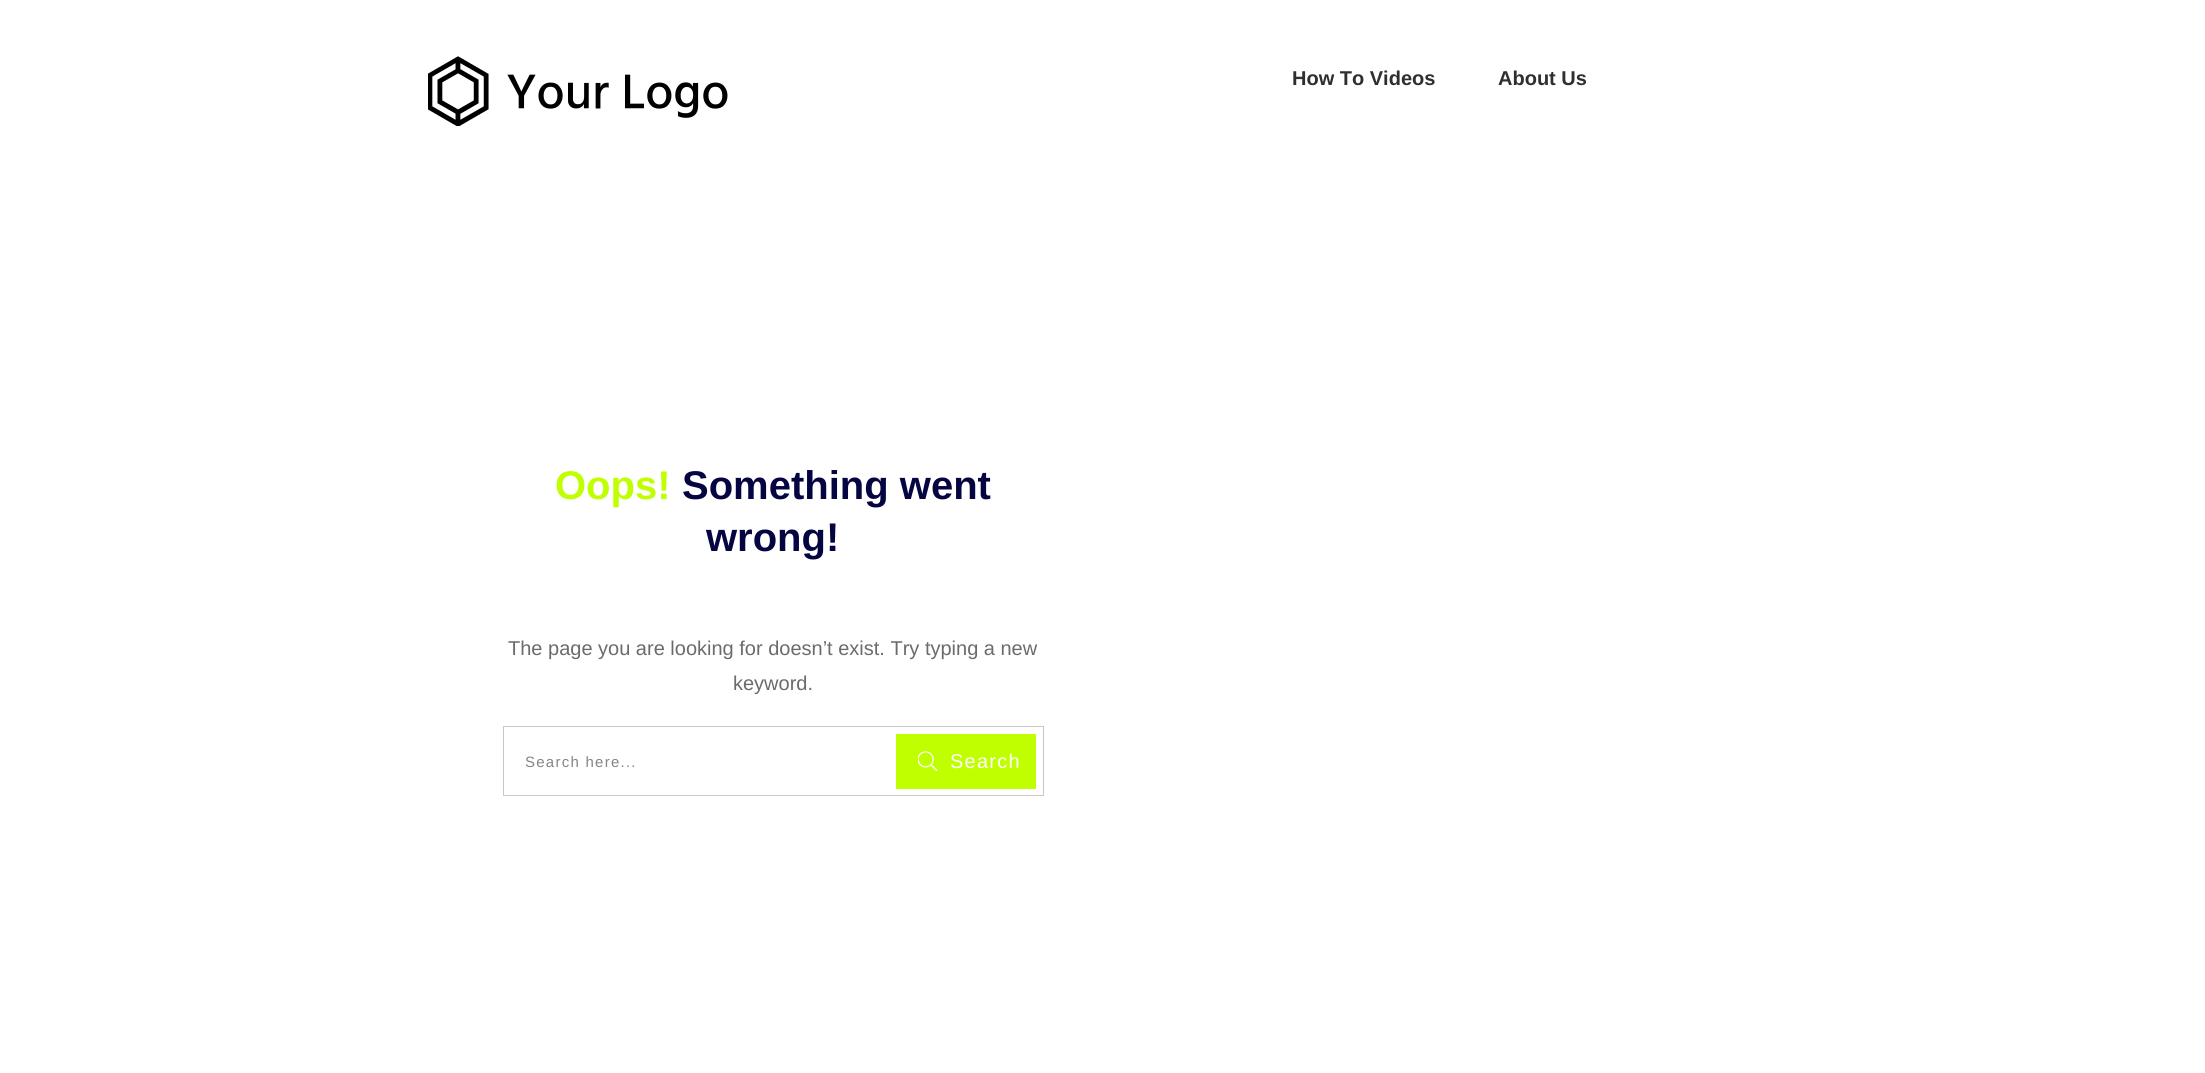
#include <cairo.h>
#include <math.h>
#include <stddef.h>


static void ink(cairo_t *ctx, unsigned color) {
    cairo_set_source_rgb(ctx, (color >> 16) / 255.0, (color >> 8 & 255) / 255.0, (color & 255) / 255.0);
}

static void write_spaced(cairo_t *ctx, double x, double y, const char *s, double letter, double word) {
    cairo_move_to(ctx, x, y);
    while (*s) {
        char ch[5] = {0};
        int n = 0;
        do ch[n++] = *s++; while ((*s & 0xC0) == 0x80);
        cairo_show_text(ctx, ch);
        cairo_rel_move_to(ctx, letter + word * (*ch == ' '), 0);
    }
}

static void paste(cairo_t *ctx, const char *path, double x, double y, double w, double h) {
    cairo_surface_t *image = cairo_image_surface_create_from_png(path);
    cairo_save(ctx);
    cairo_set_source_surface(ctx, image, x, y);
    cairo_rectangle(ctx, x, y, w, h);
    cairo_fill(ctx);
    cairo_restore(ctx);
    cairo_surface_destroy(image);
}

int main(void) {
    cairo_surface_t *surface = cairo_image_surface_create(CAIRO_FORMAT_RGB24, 2205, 1073);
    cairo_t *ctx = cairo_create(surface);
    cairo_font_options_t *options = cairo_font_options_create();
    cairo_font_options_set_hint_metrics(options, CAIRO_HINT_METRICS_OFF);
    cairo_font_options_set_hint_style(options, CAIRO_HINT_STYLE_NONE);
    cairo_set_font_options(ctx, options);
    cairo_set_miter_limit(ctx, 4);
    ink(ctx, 0xFFFFFF);
    cairo_paint(ctx);
    paste(ctx, "media/1.png", 428, 56, 300, 70);
    cairo_select_font_face(ctx, "Liberation Sans", CAIRO_FONT_SLANT_NORMAL, CAIRO_FONT_WEIGHT_BOLD);
    cairo_set_font_size(ctx, 20);
    ink(ctx, 0x2F2F2F);
    cairo_move_to(ctx, 1292, 85);
    cairo_show_text(ctx, "How To Videos");
    cairo_move_to(ctx, 1498, 85);
    cairo_show_text(ctx, "About Us");
    cairo_set_font_size(ctx, 40);
    ink(ctx, 0xBFFF00);
    cairo_move_to(ctx, 555, 499);
    cairo_show_text(ctx, "Oops!");
    ink(ctx, 0x050541);
    cairo_move_to(ctx, 682, 499);
    cairo_show_text(ctx, "Something went");
    cairo_move_to(ctx, 706, 551);
    cairo_show_text(ctx, "wrong!");
    cairo_select_font_face(ctx, "Liberation Sans", CAIRO_FONT_SLANT_NORMAL, CAIRO_FONT_WEIGHT_NORMAL);
    cairo_set_font_size(ctx, 20);
    ink(ctx, 0x6A6B6C);
    cairo_move_to(ctx, 508, 655);
    cairo_show_text(ctx, "The page you are looking for doesn’t exist. Try typing a new");
    cairo_move_to(ctx, 733, 690);
    cairo_show_text(ctx, "keyword.");
    cairo_rectangle(ctx, 503.5, 726.5, 540, 69);
    ink(ctx, 0xC7C7C7);
    cairo_set_line_width(ctx, 1);
    cairo_stroke(ctx);
    cairo_set_font_size(ctx, 15);
    ink(ctx, 0x858585);
    write_spaced(ctx, 525, 767, "Search here...", 1.25, 0);
    ink(ctx, 0xBFFF00);
    cairo_rectangle(ctx, 896, 734, 140, 55);
    cairo_fill(ctx);
    paste(ctx, "media/2.png", 918, 751, 20, 20);
    cairo_set_font_size(ctx, 20);
    ink(ctx, 0xFFFFFF);
    write_spaced(ctx, 950, 768, "Search", 1.25, 0);
    cairo_surface_write_to_png(surface, "image.png");
    cairo_font_options_destroy(options);
    cairo_destroy(ctx);
    cairo_surface_destroy(surface);
    return 0;
}
